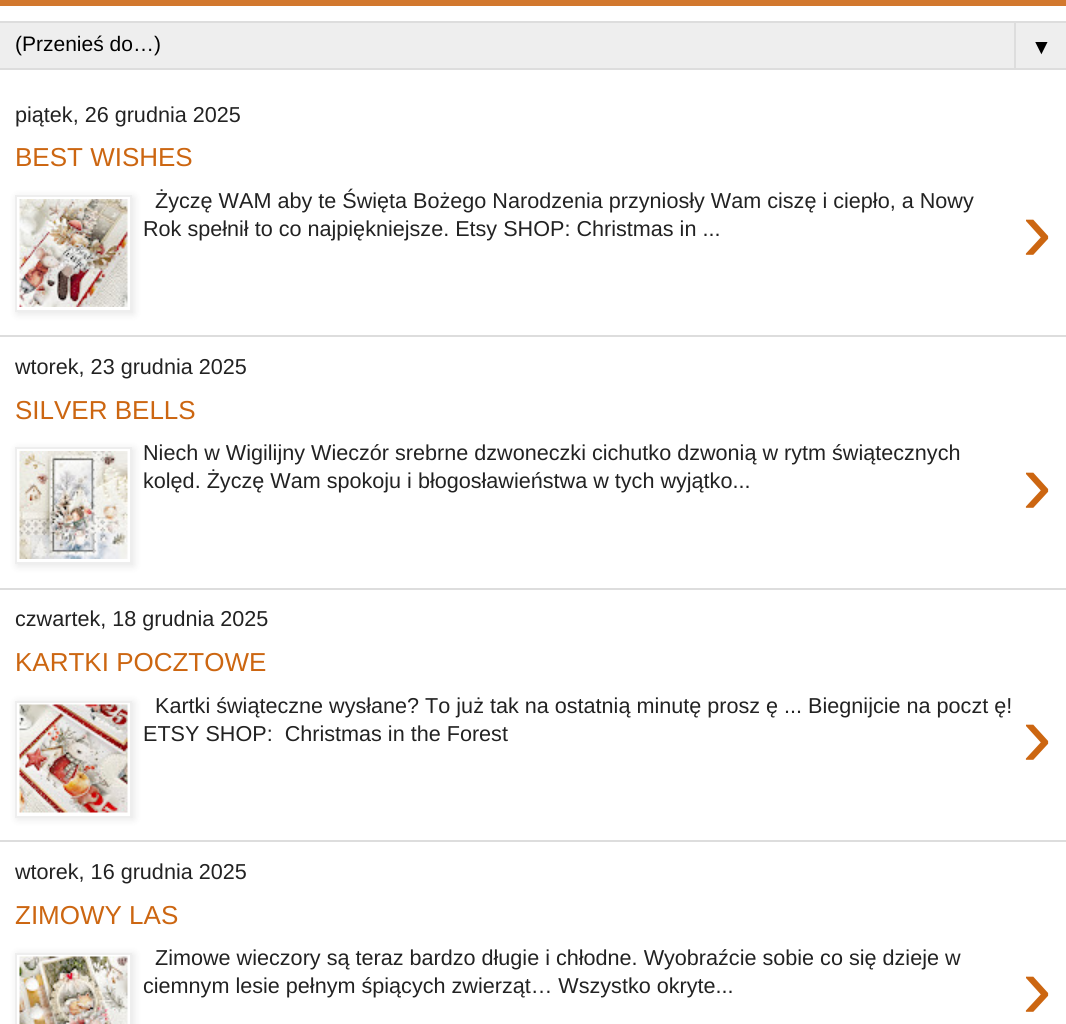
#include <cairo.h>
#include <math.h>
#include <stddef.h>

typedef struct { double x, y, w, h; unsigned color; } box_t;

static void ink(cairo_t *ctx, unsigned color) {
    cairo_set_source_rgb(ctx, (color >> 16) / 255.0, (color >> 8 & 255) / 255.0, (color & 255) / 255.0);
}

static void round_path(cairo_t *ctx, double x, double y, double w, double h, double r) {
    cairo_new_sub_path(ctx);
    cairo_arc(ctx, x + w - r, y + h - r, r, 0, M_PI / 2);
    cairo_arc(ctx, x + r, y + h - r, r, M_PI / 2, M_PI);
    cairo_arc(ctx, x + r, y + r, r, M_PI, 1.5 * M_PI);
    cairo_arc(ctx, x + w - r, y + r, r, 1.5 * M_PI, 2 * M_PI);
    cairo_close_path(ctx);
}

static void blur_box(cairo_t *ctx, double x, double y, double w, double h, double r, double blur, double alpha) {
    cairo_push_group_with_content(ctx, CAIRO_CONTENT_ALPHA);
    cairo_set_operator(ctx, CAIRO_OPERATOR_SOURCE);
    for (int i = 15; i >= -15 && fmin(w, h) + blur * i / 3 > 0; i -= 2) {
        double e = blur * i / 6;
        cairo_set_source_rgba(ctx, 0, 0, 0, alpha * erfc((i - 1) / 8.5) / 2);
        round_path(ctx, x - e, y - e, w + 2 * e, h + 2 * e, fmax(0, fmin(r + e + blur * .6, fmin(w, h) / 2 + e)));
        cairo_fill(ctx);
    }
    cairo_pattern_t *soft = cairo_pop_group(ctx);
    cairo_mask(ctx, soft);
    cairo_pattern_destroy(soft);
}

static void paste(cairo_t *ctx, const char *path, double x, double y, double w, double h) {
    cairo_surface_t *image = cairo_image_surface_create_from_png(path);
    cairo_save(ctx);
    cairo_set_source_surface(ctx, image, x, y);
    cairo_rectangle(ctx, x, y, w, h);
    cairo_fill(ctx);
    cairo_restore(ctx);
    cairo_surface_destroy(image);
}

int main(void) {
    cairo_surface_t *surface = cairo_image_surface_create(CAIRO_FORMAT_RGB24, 1066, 1024);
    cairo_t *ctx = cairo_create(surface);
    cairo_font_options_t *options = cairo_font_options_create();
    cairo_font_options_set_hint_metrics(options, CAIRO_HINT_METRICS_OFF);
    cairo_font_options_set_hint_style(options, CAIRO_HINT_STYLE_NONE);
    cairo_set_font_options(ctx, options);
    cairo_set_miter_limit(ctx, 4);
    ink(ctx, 0xFFFFFF);
    cairo_paint(ctx);
    {
        static const box_t items[] = {
            {0, 0, 1066, 6, 0xD2782E},
            {0, 23, 1066, 45, 0xEEEEEE},
            {0, 21, 1066, 2, 0xDDDDDD},
            {0, 68, 1066, 2, 0xDDDDDD},
        };
        for (size_t i = 0; i < sizeof items / sizeof *items; i++) {
            ink(ctx, items[i].color);
            cairo_rectangle(ctx, items[i].x, items[i].y, items[i].w, items[i].h);
            cairo_fill(ctx);
        }
    }
    cairo_select_font_face(ctx, "Liberation Sans", CAIRO_FONT_SLANT_NORMAL, CAIRO_FONT_WEIGHT_NORMAL);
    cairo_set_font_size(ctx, 21);
    ink(ctx, 0x000000);
    cairo_move_to(ctx, 15, 51);
    cairo_show_text(ctx, "(Przenieś do…)");
    ink(ctx, 0xDDDDDD);
    cairo_rectangle(ctx, 1014, 21, 2, 48);
    cairo_fill(ctx);
    ink(ctx, 0x000000);
    cairo_move_to(ctx, 1031, 54);
    cairo_show_text(ctx, "▼");
    ink(ctx, 0xDDDDDD);
    cairo_rectangle(ctx, 0, 335, 1066, 2);
    cairo_fill(ctx);
    cairo_set_font_size(ctx, 21.6);
    ink(ctx, 0x222222);
    cairo_move_to(ctx, 15, 122);
    cairo_show_text(ctx, "piątek, 26 grudnia 2025");
    cairo_set_font_size(ctx, 26);
    ink(ctx, 0xCC6611);
    cairo_move_to(ctx, 15, 166);
    cairo_show_text(ctx, "BEST WISHES");
    cairo_save(ctx);
    cairo_set_fill_rule(ctx, CAIRO_FILL_RULE_EVEN_ODD);
    cairo_new_path(ctx);
    cairo_move_to(ctx, 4, 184);
    cairo_line_to(ctx, 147, 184);
    cairo_line_to(ctx, 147, 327);
    cairo_line_to(ctx, 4, 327);
    cairo_close_path(ctx);
    cairo_move_to(ctx, 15, 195);
    cairo_line_to(ctx, 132, 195);
    cairo_line_to(ctx, 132, 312);
    cairo_line_to(ctx, 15, 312);
    cairo_close_path(ctx);
    cairo_clip(ctx);
    ink(ctx, 0x000000);
    blur_box(ctx, 17, 197, 117, 117, 0, 4, 0.1);
    cairo_restore(ctx);
    cairo_rectangle(ctx, 16, 196, 115, 115);
    ink(ctx, 0xEEEEEE);
    cairo_stroke(ctx);
    paste(ctx, "media/1.png", 19, 199, 109, 108);
    cairo_set_font_size(ctx, 21.6);
    ink(ctx, 0x222222);
    cairo_move_to(ctx, 155, 208);
    cairo_show_text(ctx, "Życzę WAM aby te Święta Bożego Narodzenia przyniosły Wam ciszę i ciepło, a Nowy");
    cairo_move_to(ctx, 143, 236);
    cairo_show_text(ctx, "Rok spełnił to co najpiękniejsze. Etsy SHOP: Christmas in ...");
    cairo_set_font_size(ctx, 90);
    ink(ctx, 0xCC6611);
    cairo_move_to(ctx, 1022, 261);
    cairo_show_text(ctx, "›");
    ink(ctx, 0xDDDDDD);
    cairo_rectangle(ctx, 0, 588, 1066, 2);
    cairo_fill(ctx);
    cairo_set_font_size(ctx, 21.6);
    ink(ctx, 0x222222);
    cairo_move_to(ctx, 15, 374);
    cairo_show_text(ctx, "wtorek, 23 grudnia 2025");
    cairo_set_font_size(ctx, 26);
    ink(ctx, 0xCC6611);
    cairo_move_to(ctx, 15, 419);
    cairo_show_text(ctx, "SILVER BELLS");
    cairo_save(ctx);
    cairo_set_fill_rule(ctx, CAIRO_FILL_RULE_EVEN_ODD);
    cairo_new_path(ctx);
    cairo_move_to(ctx, 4, 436);
    cairo_line_to(ctx, 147, 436);
    cairo_line_to(ctx, 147, 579);
    cairo_line_to(ctx, 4, 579);
    cairo_close_path(ctx);
    cairo_move_to(ctx, 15, 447);
    cairo_line_to(ctx, 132, 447);
    cairo_line_to(ctx, 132, 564);
    cairo_line_to(ctx, 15, 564);
    cairo_close_path(ctx);
    cairo_clip(ctx);
    ink(ctx, 0x000000);
    blur_box(ctx, 17, 449, 117, 117, 0, 4, 0.1);
    cairo_restore(ctx);
    cairo_rectangle(ctx, 16, 448, 115, 115);
    ink(ctx, 0xEEEEEE);
    cairo_stroke(ctx);
    paste(ctx, "media/2.png", 19, 451, 109, 108);
    cairo_set_font_size(ctx, 21.6);
    ink(ctx, 0x222222);
    cairo_move_to(ctx, 143, 460);
    cairo_show_text(ctx, "Niech w Wigilijny Wieczór srebrne dzwoneczki cichutko dzwonią w rytm świątecznych");
    cairo_move_to(ctx, 143, 488);
    cairo_show_text(ctx, "kolęd. Życzę Wam spokoju i błogosławieństwa w tych wyjątko...");
    cairo_set_font_size(ctx, 90);
    ink(ctx, 0xCC6611);
    cairo_move_to(ctx, 1022, 514);
    cairo_show_text(ctx, "›");
    ink(ctx, 0xDDDDDD);
    cairo_rectangle(ctx, 0, 840, 1066, 2);
    cairo_fill(ctx);
    cairo_set_font_size(ctx, 21.6);
    ink(ctx, 0x222222);
    cairo_move_to(ctx, 15, 626);
    cairo_show_text(ctx, "czwartek, 18 grudnia 2025");
    cairo_set_font_size(ctx, 26);
    ink(ctx, 0xCC6611);
    cairo_move_to(ctx, 15, 671);
    cairo_show_text(ctx, "KARTKI POCZTOWE");
    ink(ctx, 0x000000);
    blur_box(ctx, 17, 702, 117, 117, 0, 4, 0.1);
    ink(ctx, 0xFFFFFF);
    cairo_rectangle(ctx, 16, 702, 115, 115);
    cairo_fill_preserve(ctx);
    ink(ctx, 0xEEEEEE);
    cairo_stroke(ctx);
    paste(ctx, "media/3.png", 19, 704, 109, 109);
    cairo_set_font_size(ctx, 21.6);
    ink(ctx, 0x222222);
    cairo_move_to(ctx, 155, 713);
    cairo_show_text(ctx, "Kartki świąteczne wysłane? To już tak na ostatnią minutę prosz ę ... Biegnijcie na poczt ę!");
    cairo_move_to(ctx, 143, 741);
    cairo_show_text(ctx, "ETSY SHOP:  Christmas in the Forest");
    cairo_set_font_size(ctx, 90);
    ink(ctx, 0xCC6611);
    cairo_move_to(ctx, 1022, 766);
    cairo_show_text(ctx, "›");
    cairo_set_font_size(ctx, 21.6);
    ink(ctx, 0x222222);
    cairo_move_to(ctx, 15, 879);
    cairo_show_text(ctx, "wtorek, 16 grudnia 2025");
    cairo_set_font_size(ctx, 26);
    ink(ctx, 0xCC6611);
    cairo_move_to(ctx, 15, 924);
    cairo_show_text(ctx, "ZIMOWY LAS");
    cairo_save(ctx);
    cairo_set_fill_rule(ctx, CAIRO_FILL_RULE_EVEN_ODD);
    cairo_new_path(ctx);
    cairo_move_to(ctx, 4, 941);
    cairo_line_to(ctx, 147, 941);
    cairo_line_to(ctx, 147, 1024);
    cairo_line_to(ctx, 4, 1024);
    cairo_close_path(ctx);
    cairo_move_to(ctx, 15, 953);
    cairo_line_to(ctx, 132, 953);
    cairo_line_to(ctx, 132, 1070);
    cairo_line_to(ctx, 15, 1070);
    cairo_close_path(ctx);
    cairo_clip(ctx);
    ink(ctx, 0x000000);
    blur_box(ctx, 17, 954, 117, 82, 0, 4, 0.1);
    cairo_restore(ctx);
    cairo_rectangle(ctx, 16, 954, 115, 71);
    ink(ctx, 0xEEEEEE);
    cairo_stroke(ctx);
    paste(ctx, "media/4.png", 19, 956, 109, 68);
    cairo_set_font_size(ctx, 21.6);
    ink(ctx, 0x222222);
    cairo_move_to(ctx, 155, 965);
    cairo_show_text(ctx, "Zimowe wieczory są teraz bardzo długie i chłodne. Wyobraźcie sobie co się dzieje w");
    cairo_move_to(ctx, 143, 993);
    cairo_show_text(ctx, "ciemnym lesie pełnym śpiących zwierząt… Wszystko okryte...");
    cairo_set_font_size(ctx, 90);
    ink(ctx, 0xCC6611);
    cairo_move_to(ctx, 1022, 1018);
    cairo_show_text(ctx, "›");
    cairo_surface_write_to_png(surface, "image.png");
    cairo_font_options_destroy(options);
    cairo_destroy(ctx);
    cairo_surface_destroy(surface);
    return 0;
}
